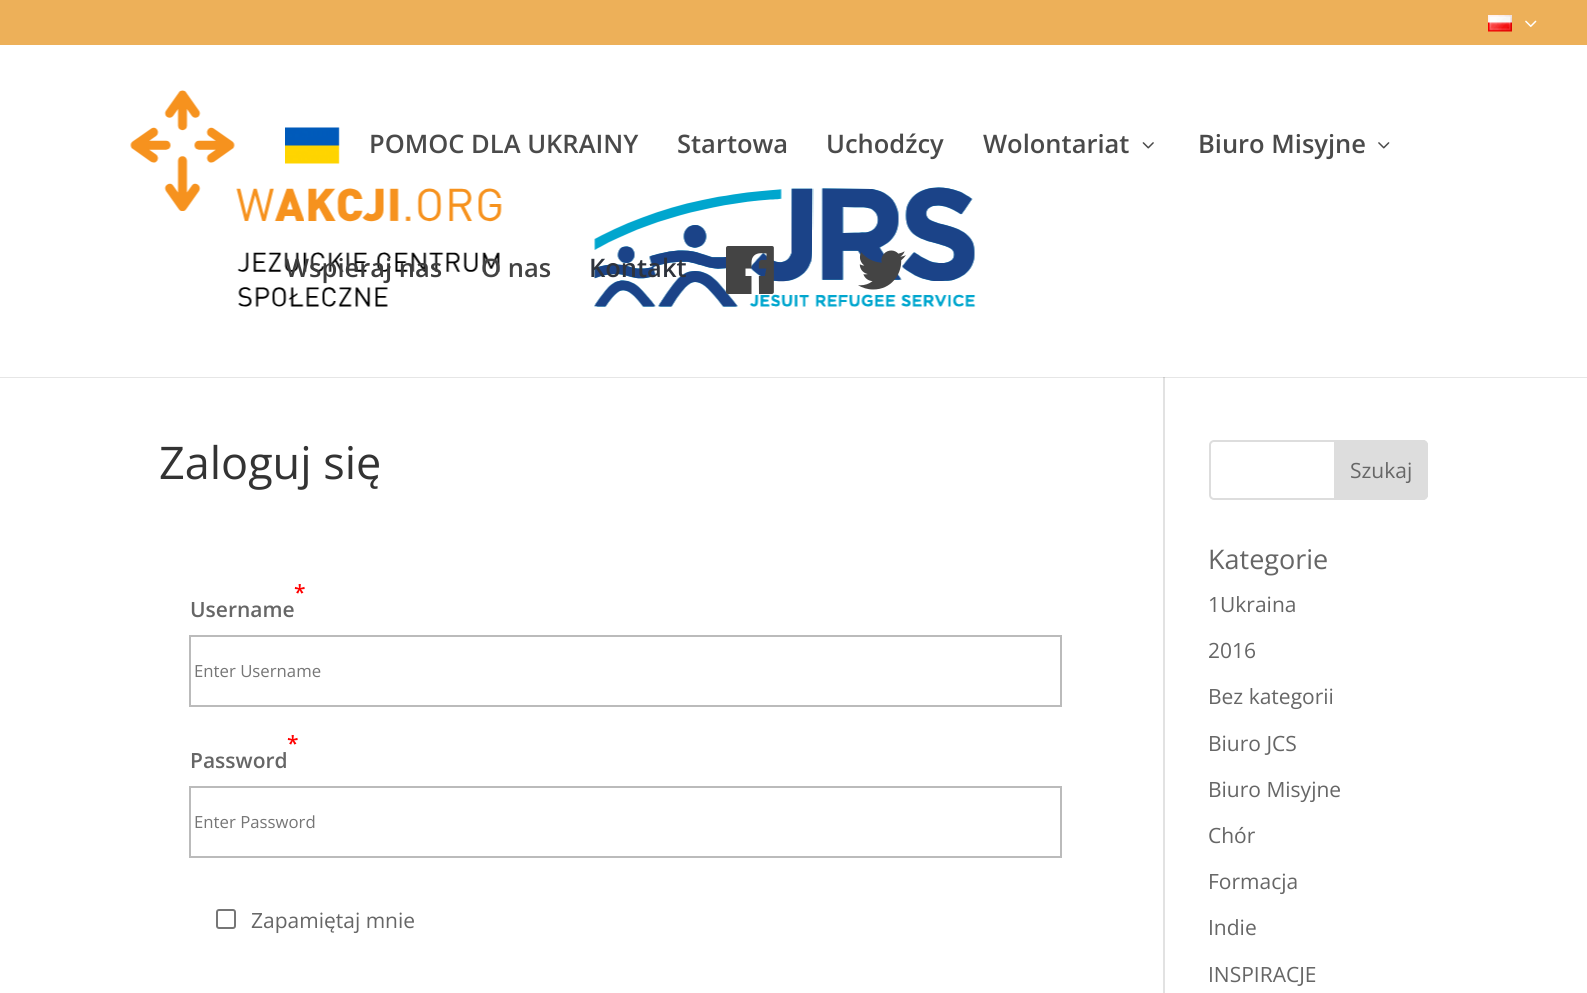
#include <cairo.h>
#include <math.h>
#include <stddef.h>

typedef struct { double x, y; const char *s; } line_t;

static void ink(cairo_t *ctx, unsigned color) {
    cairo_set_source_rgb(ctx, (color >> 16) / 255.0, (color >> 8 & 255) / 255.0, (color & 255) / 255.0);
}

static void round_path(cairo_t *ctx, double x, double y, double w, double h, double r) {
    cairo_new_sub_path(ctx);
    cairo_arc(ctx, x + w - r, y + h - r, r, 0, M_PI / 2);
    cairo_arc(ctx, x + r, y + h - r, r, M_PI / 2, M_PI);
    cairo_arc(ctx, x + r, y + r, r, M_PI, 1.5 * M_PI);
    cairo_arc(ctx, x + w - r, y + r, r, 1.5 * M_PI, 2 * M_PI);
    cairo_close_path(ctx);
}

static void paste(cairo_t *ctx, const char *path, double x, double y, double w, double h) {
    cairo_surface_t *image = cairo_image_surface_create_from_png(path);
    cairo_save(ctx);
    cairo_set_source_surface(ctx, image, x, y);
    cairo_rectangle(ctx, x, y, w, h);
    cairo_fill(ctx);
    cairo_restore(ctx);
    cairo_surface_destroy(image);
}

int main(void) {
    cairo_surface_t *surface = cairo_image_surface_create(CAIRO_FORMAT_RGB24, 1587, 993);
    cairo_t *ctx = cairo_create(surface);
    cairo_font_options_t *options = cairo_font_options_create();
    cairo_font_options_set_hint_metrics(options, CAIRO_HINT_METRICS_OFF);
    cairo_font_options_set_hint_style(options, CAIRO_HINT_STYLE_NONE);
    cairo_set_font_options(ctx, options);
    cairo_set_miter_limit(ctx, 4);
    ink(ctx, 0xFFFFFF);
    cairo_paint(ctx);
    ink(ctx, 0xE6E6E6);
    cairo_rectangle(ctx, 0, 377, 1587, 1);
    cairo_fill(ctx);
    ink(ctx, 0xEDB059);
    cairo_rectangle(ctx, 0, 0, 1587, 45);
    cairo_fill(ctx);
    paste(ctx, "media/1.png", 1488, 15, 24, 17);
    paste(ctx, "media/2.png", 1525, 20, 12, 7);
    paste(ctx, "media/3.png", 130, 90, 846, 217);
    paste(ctx, "media/4.png", 285, 127, 55, 37);
    cairo_select_font_face(ctx, "Open Sans SemiBold", CAIRO_FONT_SLANT_NORMAL, CAIRO_FONT_WEIGHT_NORMAL);
    cairo_set_font_size(ctx, 25.5);
    ink(ctx, 0x4A4A4A);
    {
        static const line_t items[] = {
            {369, 153, "POMOC DLA UKRAINY"},
            {677, 153, "Startowa"},
            {826, 153, "Uchodźcy"},
            {983, 153, "Wolontariat"},
        };
        for (size_t i = 0; i < sizeof items / sizeof *items; i++) {
            cairo_move_to(ctx, items[i].x, items[i].y);
            cairo_show_text(ctx, items[i].s);
        }
    }
    paste(ctx, "media/5.png", 1142, 142, 12, 7);
    cairo_move_to(ctx, 1198, 153);
    cairo_show_text(ctx, "Biuro Misyjne");
    paste(ctx, "media/6.png", 1378, 142, 12, 7);
    ink(ctx, 0x3D3D3D);
    cairo_move_to(ctx, 285, 277);
    cairo_show_text(ctx, "Wspieraj nas");
    ink(ctx, 0x434343);
    cairo_move_to(ctx, 481, 277);
    cairo_show_text(ctx, "O nas");
    ink(ctx, 0x2E333C);
    cairo_move_to(ctx, 589, 277);
    cairo_show_text(ctx, "Kontakt");
    paste(ctx, "media/7.png", 726, 246, 48, 48);
    paste(ctx, "media/8.png", 858, 250, 48, 40);
    ink(ctx, 0xE2E2E2);
    cairo_rectangle(ctx, 1163, 378, 2, 615);
    cairo_fill(ctx);
    ink(ctx, 0xCBCBCB);
    cairo_rectangle(ctx, 1163, 377, 2, 1);
    cairo_fill(ctx);
    cairo_select_font_face(ctx, "Open Sans", CAIRO_FONT_SLANT_NORMAL, CAIRO_FONT_WEIGHT_NORMAL);
    cairo_set_font_size(ctx, 45);
    ink(ctx, 0x333333);
    cairo_move_to(ctx, 159, 479);
    cairo_show_text(ctx, "Zaloguj się");
    cairo_select_font_face(ctx, "Open Sans SemiBold", CAIRO_FONT_SLANT_NORMAL, CAIRO_FONT_WEIGHT_NORMAL);
    cairo_set_font_size(ctx, 21);
    ink(ctx, 0xFF0000);
    cairo_move_to(ctx, 294, 600);
    cairo_show_text(ctx, "*");
    ink(ctx, 0x666666);
    cairo_move_to(ctx, 190, 617);
    cairo_show_text(ctx, "Username");
    cairo_rectangle(ctx, 190, 636, 871, 70);
    ink(ctx, 0xBBBBBB);
    cairo_stroke(ctx);
    cairo_select_font_face(ctx, "Open Sans", CAIRO_FONT_SLANT_NORMAL, CAIRO_FONT_WEIGHT_NORMAL);
    cairo_set_font_size(ctx, 16.75);
    ink(ctx, 0x757575);
    cairo_move_to(ctx, 194, 677);
    cairo_show_text(ctx, "Enter Username");
    cairo_select_font_face(ctx, "Open Sans SemiBold", CAIRO_FONT_SLANT_NORMAL, CAIRO_FONT_WEIGHT_NORMAL);
    cairo_set_font_size(ctx, 21);
    ink(ctx, 0xFF0000);
    cairo_move_to(ctx, 287, 751);
    cairo_show_text(ctx, "*");
    ink(ctx, 0x666666);
    cairo_move_to(ctx, 190, 768);
    cairo_show_text(ctx, "Password");
    cairo_rectangle(ctx, 190, 787, 871, 70);
    ink(ctx, 0xBBBBBB);
    cairo_stroke(ctx);
    cairo_select_font_face(ctx, "Open Sans", CAIRO_FONT_SLANT_NORMAL, CAIRO_FONT_WEIGHT_NORMAL);
    cairo_set_font_size(ctx, 16.75);
    ink(ctx, 0x757575);
    cairo_move_to(ctx, 194, 828);
    cairo_show_text(ctx, "Enter Password");
    round_path(ctx, 217, 910, 18, 18, 2);
    ink(ctx, 0x767676);
    cairo_stroke(ctx);
    cairo_set_font_size(ctx, 21);
    ink(ctx, 0x666666);
    cairo_move_to(ctx, 251, 928);
    cairo_show_text(ctx, "Zapamiętaj mnie");
    round_path(ctx, 1210, 441, 217, 58, 4);
    ink(ctx, 0xDDDDDD);
    cairo_stroke(ctx);
    cairo_new_path(ctx);
    cairo_move_to(ctx, 1335, 441);
    cairo_line_to(ctx, 1423, 441);
    cairo_curve_to(ctx, 1425, 441, 1427, 443, 1427, 445);
    cairo_line_to(ctx, 1427, 495);
    cairo_curve_to(ctx, 1427, 497, 1425, 499, 1423, 499);
    cairo_line_to(ctx, 1335, 499);
    cairo_close_path(ctx);
    cairo_fill_preserve(ctx);
    cairo_stroke(ctx);
    ink(ctx, 0x666666);
    cairo_move_to(ctx, 1350, 478);
    cairo_show_text(ctx, "Szukaj");
    cairo_set_font_size(ctx, 27);
    cairo_move_to(ctx, 1208, 569);
    cairo_show_text(ctx, "Kategorie");
    cairo_set_font_size(ctx, 21);
    {
        static const line_t items[] = {
            {1208, 612, "1Ukraina"},
            {1208, 658, "2016"},
            {1208, 704, "Bez kategorii"},
            {1208, 751, "Biuro JCS"},
            {1208, 797, "Biuro Misyjne"},
            {1208, 843, "Chór"},
            {1208, 889, "Formacja"},
            {1208, 935, "Indie"},
            {1208, 982, "INSPIRACJE"},
        };
        for (size_t i = 0; i < sizeof items / sizeof *items; i++) {
            cairo_move_to(ctx, items[i].x, items[i].y);
            cairo_show_text(ctx, items[i].s);
        }
    }
    cairo_surface_write_to_png(surface, "image.png");
    cairo_font_options_destroy(options);
    cairo_destroy(ctx);
    cairo_surface_destroy(surface);
    return 0;
}
